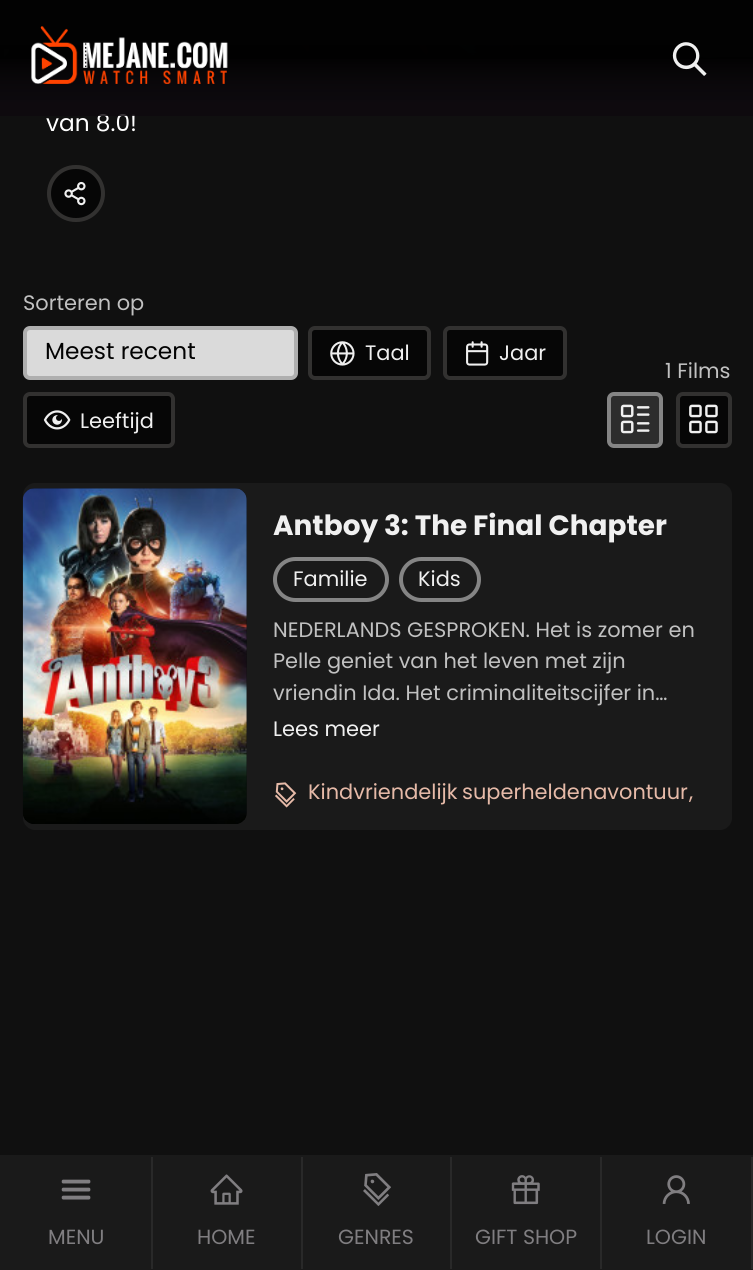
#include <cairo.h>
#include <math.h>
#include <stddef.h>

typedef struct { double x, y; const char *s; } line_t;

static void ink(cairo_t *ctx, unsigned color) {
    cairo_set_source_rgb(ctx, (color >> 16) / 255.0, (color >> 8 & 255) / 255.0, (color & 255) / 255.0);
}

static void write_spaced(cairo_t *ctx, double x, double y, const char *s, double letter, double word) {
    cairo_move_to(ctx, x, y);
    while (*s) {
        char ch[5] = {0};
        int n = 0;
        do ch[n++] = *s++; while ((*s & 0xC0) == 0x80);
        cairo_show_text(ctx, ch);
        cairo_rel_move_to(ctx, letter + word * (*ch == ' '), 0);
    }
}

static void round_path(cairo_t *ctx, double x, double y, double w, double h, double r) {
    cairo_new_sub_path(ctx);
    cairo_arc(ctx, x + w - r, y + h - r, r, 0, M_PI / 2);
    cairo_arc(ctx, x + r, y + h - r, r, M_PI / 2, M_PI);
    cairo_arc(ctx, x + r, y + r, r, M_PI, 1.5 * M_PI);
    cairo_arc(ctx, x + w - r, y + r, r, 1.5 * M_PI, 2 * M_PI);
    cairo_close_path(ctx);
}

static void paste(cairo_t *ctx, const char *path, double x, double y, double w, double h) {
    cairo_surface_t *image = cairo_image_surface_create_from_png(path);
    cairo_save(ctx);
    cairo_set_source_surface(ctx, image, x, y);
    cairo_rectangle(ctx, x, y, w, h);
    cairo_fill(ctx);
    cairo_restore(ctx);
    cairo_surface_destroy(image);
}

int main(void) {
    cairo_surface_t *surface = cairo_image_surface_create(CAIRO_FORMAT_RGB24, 753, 1270);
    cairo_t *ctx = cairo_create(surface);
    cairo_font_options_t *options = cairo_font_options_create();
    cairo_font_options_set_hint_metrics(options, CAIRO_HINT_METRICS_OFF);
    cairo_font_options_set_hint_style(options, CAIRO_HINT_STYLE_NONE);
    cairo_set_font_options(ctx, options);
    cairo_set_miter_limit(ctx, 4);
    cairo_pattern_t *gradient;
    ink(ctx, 0x101010);
    cairo_paint(ctx);
    paste(ctx, "media/1.png", 4, 0, 749, 68);
    gradient = cairo_pattern_create_linear(377, -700, 377, 74);
    cairo_pattern_add_color_stop_rgba(gradient, 0, 0.063, 0.063, 0.063, 0.2);
    cairo_pattern_add_color_stop_rgba(gradient, 1, 0.063, 0.063, 0.063, 1);
    cairo_set_source(ctx, gradient);
    cairo_pattern_destroy(gradient);
    cairo_rectangle(ctx, 4, 0, 749, 68);
    cairo_fill(ctx);
    gradient = cairo_pattern_create_linear(0, -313, 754, -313);
    cairo_pattern_add_color_stop_rgba(gradient, 0, 0.063, 0.063, 0.063, 1);
    cairo_pattern_add_color_stop_rgba(gradient, 1, 0.063, 0.063, 0.063, 0);
    cairo_set_source(ctx, gradient);
    cairo_pattern_destroy(gradient);
    cairo_rectangle(ctx, 4, 0, 18, 49);
    cairo_fill(ctx);
    cairo_select_font_face(ctx, "Poppins", CAIRO_FONT_SLANT_NORMAL, CAIRO_FONT_WEIGHT_NORMAL);
    cairo_set_font_size(ctx, 23.25);
    ink(ctx, 0xFFFFFF);
    cairo_move_to(ctx, 46, 131);
    cairo_show_text(ctx, "van 8.0!");
    ink(ctx, 0x060606);
    round_path(ctx, 49, 167, 54, 53, 26.5);
    cairo_fill_preserve(ctx);
    ink(ctx, 0x323130);
    cairo_set_line_width(ctx, 4);
    cairo_stroke(ctx);
    paste(ctx, "media/2.png", 64, 181, 22, 25);
    cairo_set_font_size(ctx, 20.9);
    ink(ctx, 0xC1C1C1);
    cairo_move_to(ctx, 23, 310);
    cairo_show_text(ctx, "Sorteren op");
    ink(ctx, 0xDADADA);
    round_path(ctx, 25, 328, 271, 50, 5);
    cairo_fill_preserve(ctx);
    ink(ctx, 0xAFAFAF);
    cairo_stroke(ctx);
    cairo_set_font_size(ctx, 23.25);
    ink(ctx, 0x020202);
    cairo_move_to(ctx, 45, 359);
    cairo_show_text(ctx, "Meest recent");
    ink(ctx, 0x060606);
    round_path(ctx, 310, 328, 119, 50, 5);
    cairo_fill_preserve(ctx);
    ink(ctx, 0x323130);
    cairo_stroke(ctx);
    paste(ctx, "media/3.png", 330, 341, 25, 25);
    cairo_set_font_size(ctx, 20.9);
    ink(ctx, 0xF0F0F0);
    cairo_move_to(ctx, 365, 360);
    cairo_show_text(ctx, "Taal");
    ink(ctx, 0x060606);
    round_path(ctx, 445, 328, 120, 50, 5);
    cairo_fill_preserve(ctx);
    ink(ctx, 0x323130);
    cairo_stroke(ctx);
    paste(ctx, "media/4.png", 466, 341, 23, 25);
    ink(ctx, 0xF0F0F0);
    cairo_move_to(ctx, 499, 360);
    cairo_show_text(ctx, "Jaar");
    ink(ctx, 0x060606);
    round_path(ctx, 25, 394, 148, 52, 5);
    cairo_fill_preserve(ctx);
    ink(ctx, 0x323130);
    cairo_stroke(ctx);
    paste(ctx, "media/5.png", 43, 410, 28, 20);
    ink(ctx, 0xF0F0F0);
    cairo_move_to(ctx, 80, 428);
    cairo_show_text(ctx, "Leeftijd");
    ink(ctx, 0xC1C1C1);
    cairo_move_to(ctx, 665, 378);
    cairo_show_text(ctx, "1 Films");
    ink(ctx, 0x2D2D2D);
    round_path(ctx, 609, 394, 52, 52, 5);
    cairo_fill_preserve(ctx);
    ink(ctx, 0x858585);
    cairo_stroke(ctx);
    paste(ctx, "media/6.png", 620, 404, 30, 30);
    ink(ctx, 0x060606);
    round_path(ctx, 678, 394, 52, 52, 5);
    cairo_fill_preserve(ctx);
    ink(ctx, 0x323130);
    cairo_stroke(ctx);
    paste(ctx, "media/7.png", 689, 404, 29, 30);
    ink(ctx, 0x1A1A1A);
    cairo_new_path(ctx);
    cairo_move_to(ctx, 35, 483);
    cairo_line_to(ctx, 247, 483);
    cairo_line_to(ctx, 247, 830);
    cairo_line_to(ctx, 35, 830);
    cairo_curve_to(ctx, 28.5, 830, 23, 824.5, 23, 818);
    cairo_line_to(ctx, 23, 495);
    cairo_curve_to(ctx, 23, 488.5, 28.5, 483, 35, 483);
    cairo_close_path(ctx);
    cairo_fill(ctx);
    ink(ctx, 0x101010);
    round_path(ctx, 23, 488, 224, 336, 12);
    cairo_fill(ctx);
    paste(ctx, "media/8.png", 22, 488, 225, 336);
    ink(ctx, 0x1A1A1A);
    cairo_new_path(ctx);
    cairo_move_to(ctx, 247, 483);
    cairo_line_to(ctx, 720, 483);
    cairo_curve_to(ctx, 726.5, 483, 732, 488.5, 732, 495);
    cairo_line_to(ctx, 732, 818);
    cairo_curve_to(ctx, 732, 824.5, 726.5, 830, 720, 830);
    cairo_line_to(ctx, 247, 830);
    cairo_close_path(ctx);
    cairo_fill(ctx);
    cairo_select_font_face(ctx, "Poppins", CAIRO_FONT_SLANT_NORMAL, CAIRO_FONT_WEIGHT_BOLD);
    cairo_set_font_size(ctx, 27.9);
    ink(ctx, 0xF0F0F0);
    cairo_move_to(ctx, 273, 535);
    cairo_show_text(ctx, "Antboy 3: The Final Chapter");
    round_path(ctx, 275, 559, 112, 41, 20.5);
    ink(ctx, 0x858585);
    cairo_stroke(ctx);
    cairo_select_font_face(ctx, "Poppins", CAIRO_FONT_SLANT_NORMAL, CAIRO_FONT_WEIGHT_NORMAL);
    cairo_set_font_size(ctx, 20.9);
    ink(ctx, 0xF0F0F0);
    cairo_move_to(ctx, 293, 586);
    cairo_show_text(ctx, "Familie");
    round_path(ctx, 401, 559, 78, 41, 20.5);
    ink(ctx, 0x858585);
    cairo_stroke(ctx);
    ink(ctx, 0xF0F0F0);
    cairo_move_to(ctx, 418, 586);
    cairo_show_text(ctx, "Kids");
    ink(ctx, 0xC1C1C1);
    {
        static const line_t items[] = {
            {273, 637, "NEDERLANDS GESPROKEN. Het is zomer en"},
            {273, 668, "Pelle geniet van het leven met zijn"},
            {273, 700, "vriendin Ida. Het criminaliteitscijfer in…"},
        };
        for (size_t i = 0; i < sizeof items / sizeof *items; i++) {
            cairo_move_to(ctx, items[i].x, items[i].y);
            cairo_show_text(ctx, items[i].s);
        }
    }
    ink(ctx, 0xF0F0F0);
    cairo_move_to(ctx, 273, 736);
    cairo_show_text(ctx, "Lees meer");
    paste(ctx, "media/9.png", 275, 782, 22, 26);
    ink(ctx, 0xE6BAA8);
    write_spaced(ctx, 308, 799, "Kindvriendelijk superheldenavontuur", 0, -1);
    cairo_move_to(ctx, 689, 799);
    cairo_show_text(ctx, ",");
    cairo_set_source_rgba(ctx, 0, 0, 0, 0.75);
    cairo_rectangle(ctx, 0, 0, 753, 116);
    cairo_fill(ctx);
    gradient = cairo_pattern_create_linear(377, 0, 377, 116);
    cairo_pattern_add_color_stop_rgba(gradient, 0, 0, 0, 0, 0.61);
    cairo_pattern_add_color_stop_rgba(gradient, 0.5, 0, 0, 0, 0.63);
    cairo_pattern_add_color_stop_rgba(gradient, 1, 0.149, 0.102, 0.157, 0.28);
    cairo_set_source(ctx, gradient);
    cairo_pattern_destroy(gradient);
    cairo_rectangle(ctx, 0, 0, 753, 116);
    cairo_fill(ctx);
    paste(ctx, "media/10.png", 31, 26, 197, 58);
    paste(ctx, "media/11.png", 672, 42, 35, 34);
    ink(ctx, 0x1A1A1A);
    cairo_rectangle(ctx, 0, 1155, 753, 115);
    cairo_fill(ctx);
    ink(ctx, 0x292929);
    cairo_rectangle(ctx, 151, 1157, 2, 112);
    cairo_fill(ctx);
    paste(ctx, "media/12.png", 61, 1179, 30, 21);
    cairo_set_font_size(ctx, 20.5);
    ink(ctx, 0x807E81);
    cairo_move_to(ctx, 48, 1244);
    cairo_show_text(ctx, "MENU");
    ink(ctx, 0x292929);
    cairo_rectangle(ctx, 301, 1157, 2, 112);
    cairo_fill(ctx);
    paste(ctx, "media/13.png", 210, 1174, 33, 31);
    ink(ctx, 0x807E81);
    cairo_move_to(ctx, 197, 1244);
    cairo_show_text(ctx, "HOME");
    ink(ctx, 0x292929);
    cairo_rectangle(ctx, 450, 1157, 2, 112);
    cairo_fill(ctx);
    paste(ctx, "media/14.png", 363, 1173, 28, 33);
    ink(ctx, 0x807E81);
    cairo_move_to(ctx, 338, 1244);
    cairo_show_text(ctx, "GENRES");
    ink(ctx, 0x292929);
    cairo_rectangle(ctx, 600, 1157, 2, 112);
    cairo_fill(ctx);
    paste(ctx, "media/15.png", 511, 1175, 29, 30);
    ink(ctx, 0x807E81);
    cairo_move_to(ctx, 475, 1244);
    cairo_show_text(ctx, "GIFT SHOP");
    ink(ctx, 0x292929);
    cairo_rectangle(ctx, 751, 1157, 2, 112);
    cairo_fill(ctx);
    paste(ctx, "media/16.png", 662, 1175, 28, 29);
    ink(ctx, 0x807E81);
    cairo_move_to(ctx, 646, 1244);
    cairo_show_text(ctx, "LOGIN");
    cairo_surface_write_to_png(surface, "image.png");
    cairo_font_options_destroy(options);
    cairo_destroy(ctx);
    cairo_surface_destroy(surface);
    return 0;
}
